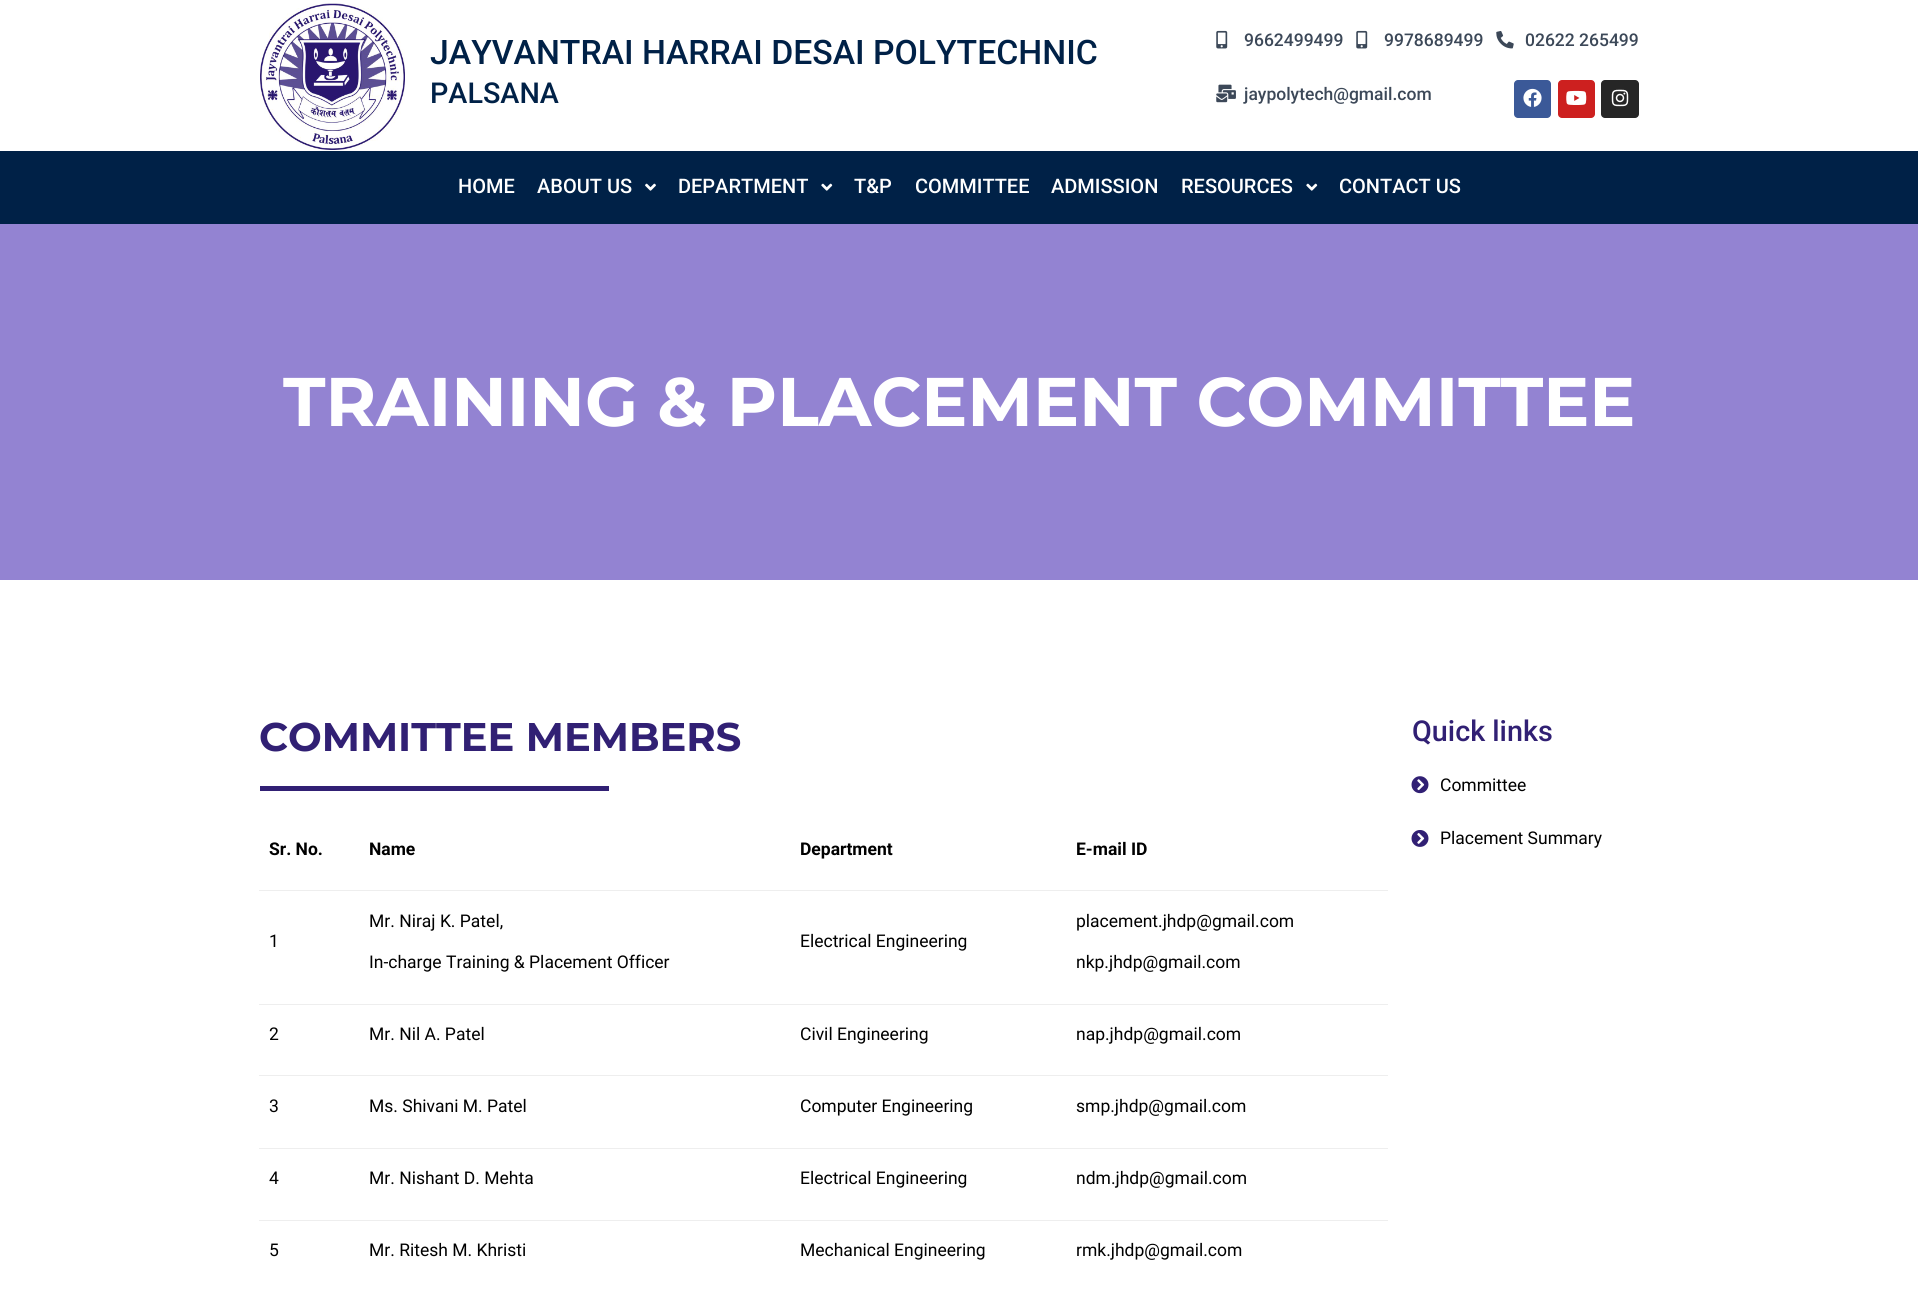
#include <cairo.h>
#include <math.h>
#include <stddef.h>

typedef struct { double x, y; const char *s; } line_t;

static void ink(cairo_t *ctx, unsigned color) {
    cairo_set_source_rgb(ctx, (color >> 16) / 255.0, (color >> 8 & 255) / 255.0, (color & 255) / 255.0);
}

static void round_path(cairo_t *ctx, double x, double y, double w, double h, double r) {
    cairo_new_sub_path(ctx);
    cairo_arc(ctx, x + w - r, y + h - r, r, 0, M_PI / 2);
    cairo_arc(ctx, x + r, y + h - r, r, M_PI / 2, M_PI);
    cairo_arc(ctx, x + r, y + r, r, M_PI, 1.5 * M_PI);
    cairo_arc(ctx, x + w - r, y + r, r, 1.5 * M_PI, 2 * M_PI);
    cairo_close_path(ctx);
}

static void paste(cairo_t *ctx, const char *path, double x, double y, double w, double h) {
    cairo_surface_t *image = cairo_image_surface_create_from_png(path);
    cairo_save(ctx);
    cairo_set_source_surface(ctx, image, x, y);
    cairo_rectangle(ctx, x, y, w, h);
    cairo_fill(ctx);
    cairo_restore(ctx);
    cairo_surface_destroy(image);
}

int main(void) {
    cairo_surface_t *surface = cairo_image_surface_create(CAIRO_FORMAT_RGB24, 1918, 1294);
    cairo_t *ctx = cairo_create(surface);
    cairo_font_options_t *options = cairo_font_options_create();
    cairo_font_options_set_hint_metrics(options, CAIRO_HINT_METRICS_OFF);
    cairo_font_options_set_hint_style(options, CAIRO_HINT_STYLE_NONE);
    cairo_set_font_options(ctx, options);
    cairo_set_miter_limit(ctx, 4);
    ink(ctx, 0x9383D2);
    cairo_paint(ctx);
    ink(ctx, 0xFFFFFF);
    cairo_rectangle(ctx, 0, 0, 1918, 151);
    cairo_fill(ctx);
    paste(ctx, "media/1.png", 260, 3, 145, 147);
    cairo_select_font_face(ctx, "Roboto Medium", CAIRO_FONT_SLANT_NORMAL, CAIRO_FONT_WEIGHT_NORMAL);
    cairo_set_font_size(ctx, 33.75);
    ink(ctx, 0x002147);
    cairo_move_to(ctx, 430, 64);
    cairo_show_text(ctx, "JAYVANTRAI HARRAI DESAI POLYTECHNIC");
    cairo_set_font_size(ctx, 28.75);
    cairo_move_to(ctx, 430, 103);
    cairo_show_text(ctx, "PALSANA");
    paste(ctx, "media/2.png", 1216, 30, 12, 19);
    cairo_set_font_size(ctx, 17.5);
    ink(ctx, 0x3C4858);
    cairo_move_to(ctx, 1244, 46);
    cairo_show_text(ctx, "9662499499");
    paste(ctx, "media/2.png", 1356, 30, 12, 19);
    cairo_move_to(ctx, 1384, 46);
    cairo_show_text(ctx, "9978689499");
    paste(ctx, "media/3.png", 1496, 31, 18, 18);
    cairo_move_to(ctx, 1525, 46);
    cairo_show_text(ctx, "02622 265499");
    paste(ctx, "media/4.png", 1216, 84, 20, 19);
    cairo_move_to(ctx, 1244, 100);
    cairo_show_text(ctx, "jaypolytech@gmail.com");
    ink(ctx, 0x3B5998);
    round_path(ctx, 1514, 80, 37, 38, 4);
    cairo_fill(ctx);
    paste(ctx, "media/5.png", 1523, 88, 19, 19);
    ink(ctx, 0xCD201F);
    round_path(ctx, 1558, 80, 37, 38, 4);
    cairo_fill(ctx);
    paste(ctx, "media/6.png", 1566, 90, 21, 15);
    ink(ctx, 0x262626);
    round_path(ctx, 1601, 80, 38, 38, 4);
    cairo_fill(ctx);
    paste(ctx, "media/7.png", 1611, 89, 18, 18);
    ink(ctx, 0x002147);
    cairo_rectangle(ctx, 0, 151, 1918, 73);
    cairo_fill(ctx);
    cairo_set_font_size(ctx, 20);
    ink(ctx, 0xFFFFFF);
    cairo_move_to(ctx, 458, 193);
    cairo_show_text(ctx, "HOME");
    cairo_move_to(ctx, 537, 193);
    cairo_show_text(ctx, "ABOUT US");
    paste(ctx, "media/8.png", 645, 183, 11, 8);
    cairo_move_to(ctx, 678, 193);
    cairo_show_text(ctx, "DEPARTMENT");
    paste(ctx, "media/9.png", 821, 183, 12, 8);
    {
        static const line_t items[] = {
            {854, 193, "T&P"},
            {915, 193, "COMMITTEE"},
            {1051, 193, "ADMISSION"},
            {1181, 193, "RESOURCES"},
        };
        for (size_t i = 0; i < sizeof items / sizeof *items; i++) {
            cairo_move_to(ctx, items[i].x, items[i].y);
            cairo_show_text(ctx, items[i].s);
        }
    }
    paste(ctx, "media/9.png", 1306, 183, 12, 8);
    cairo_move_to(ctx, 1339, 193);
    cairo_show_text(ctx, "CONTACT US");
    cairo_select_font_face(ctx, "Montserrat", CAIRO_FONT_SLANT_NORMAL, CAIRO_FONT_WEIGHT_BOLD);
    cairo_set_font_size(ctx, 68.75);
    cairo_move_to(ctx, 283, 426);
    cairo_show_text(ctx, "TRAINING & PLACEMENT COMMITTEE");
    cairo_rectangle(ctx, 0, 580, 1918, 714);
    cairo_fill(ctx);
    cairo_set_font_size(ctx, 40);
    ink(ctx, 0x312074);
    cairo_move_to(ctx, 259, 751);
    cairo_show_text(ctx, "COMMITTEE MEMBERS");
    cairo_rectangle(ctx, 260, 786, 349, 5);
    cairo_fill(ctx);
    ink(ctx, 0xEEEEEE);
    cairo_rectangle(ctx, 259, 890, 1129, 1);
    cairo_fill(ctx);
    cairo_select_font_face(ctx, "Roboto", CAIRO_FONT_SLANT_NORMAL, CAIRO_FONT_WEIGHT_BOLD);
    cairo_set_font_size(ctx, 17.5);
    ink(ctx, 0x000000);
    {
        static const line_t items[] = {
            {269, 855, "Sr. No."},
            {369, 855, "Name"},
            {800, 855, "Department"},
            {1076, 855, "E-mail ID"},
        };
        for (size_t i = 0; i < sizeof items / sizeof *items; i++) {
            cairo_move_to(ctx, items[i].x, items[i].y);
            cairo_show_text(ctx, items[i].s);
        }
    }
    ink(ctx, 0xEEEEEE);
    cairo_rectangle(ctx, 259, 1004, 1129, 1);
    cairo_fill(ctx);
    cairo_select_font_face(ctx, "Roboto", CAIRO_FONT_SLANT_NORMAL, CAIRO_FONT_WEIGHT_NORMAL);
    ink(ctx, 0x000000);
    {
        static const line_t items[] = {
            {269, 947, "1"},
            {369, 927, "Mr. Niraj K. Patel,"},
            {369, 968, "In-charge Training & Placement Officer"},
            {800, 947, "Electrical Engineering"},
            {1076, 927, "placement.jhdp@gmail.com"},
            {1076, 968, "nkp.jhdp@gmail.com"},
        };
        for (size_t i = 0; i < sizeof items / sizeof *items; i++) {
            cairo_move_to(ctx, items[i].x, items[i].y);
            cairo_show_text(ctx, items[i].s);
        }
    }
    ink(ctx, 0xEEEEEE);
    cairo_rectangle(ctx, 259, 1075, 1129, 1);
    cairo_fill(ctx);
    ink(ctx, 0x000000);
    {
        static const line_t items[] = {
            {269, 1040, "2"},
            {369, 1040, "Mr. Nil A. Patel"},
            {800, 1040, "Civil Engineering"},
            {1076, 1040, "nap.jhdp@gmail.com"},
        };
        for (size_t i = 0; i < sizeof items / sizeof *items; i++) {
            cairo_move_to(ctx, items[i].x, items[i].y);
            cairo_show_text(ctx, items[i].s);
        }
    }
    ink(ctx, 0xEEEEEE);
    cairo_rectangle(ctx, 259, 1148, 1129, 1);
    cairo_fill(ctx);
    ink(ctx, 0x000000);
    {
        static const line_t items[] = {
            {269, 1112, "3"},
            {369, 1112, "Ms. Shivani M. Patel"},
            {800, 1112, "Computer Engineering"},
            {1076, 1112, "smp.jhdp@gmail.com"},
        };
        for (size_t i = 0; i < sizeof items / sizeof *items; i++) {
            cairo_move_to(ctx, items[i].x, items[i].y);
            cairo_show_text(ctx, items[i].s);
        }
    }
    ink(ctx, 0xEEEEEE);
    cairo_rectangle(ctx, 259, 1220, 1129, 1);
    cairo_fill(ctx);
    ink(ctx, 0x000000);
    {
        static const line_t items[] = {
            {269, 1184, "4"},
            {369, 1184, "Mr. Nishant D. Mehta"},
            {800, 1184, "Electrical Engineering"},
            {1076, 1184, "ndm.jhdp@gmail.com"},
            {269, 1256, "5"},
            {369, 1256, "Mr. Ritesh M. Khristi"},
            {800, 1256, "Mechanical Engineering"},
            {1076, 1256, "rmk.jhdp@gmail.com"},
        };
        for (size_t i = 0; i < sizeof items / sizeof *items; i++) {
            cairo_move_to(ctx, items[i].x, items[i].y);
            cairo_show_text(ctx, items[i].s);
        }
    }
    cairo_select_font_face(ctx, "Roboto Medium", CAIRO_FONT_SLANT_NORMAL, CAIRO_FONT_WEIGHT_NORMAL);
    cairo_set_font_size(ctx, 28.75);
    ink(ctx, 0x312074);
    cairo_move_to(ctx, 1412, 741);
    cairo_show_text(ctx, "Quick links");
    paste(ctx, "media/10.png", 1411, 776, 18, 18);
    cairo_select_font_face(ctx, "Roboto", CAIRO_FONT_SLANT_NORMAL, CAIRO_FONT_WEIGHT_NORMAL);
    cairo_set_font_size(ctx, 17.5);
    ink(ctx, 0x000000);
    cairo_move_to(ctx, 1440, 791);
    cairo_show_text(ctx, "Committee");
    paste(ctx, "media/11.png", 1411, 830, 18, 17);
    cairo_move_to(ctx, 1440, 844);
    cairo_show_text(ctx, "Placement Summary");
    cairo_surface_write_to_png(surface, "image.png");
    cairo_font_options_destroy(options);
    cairo_destroy(ctx);
    cairo_surface_destroy(surface);
    return 0;
}
